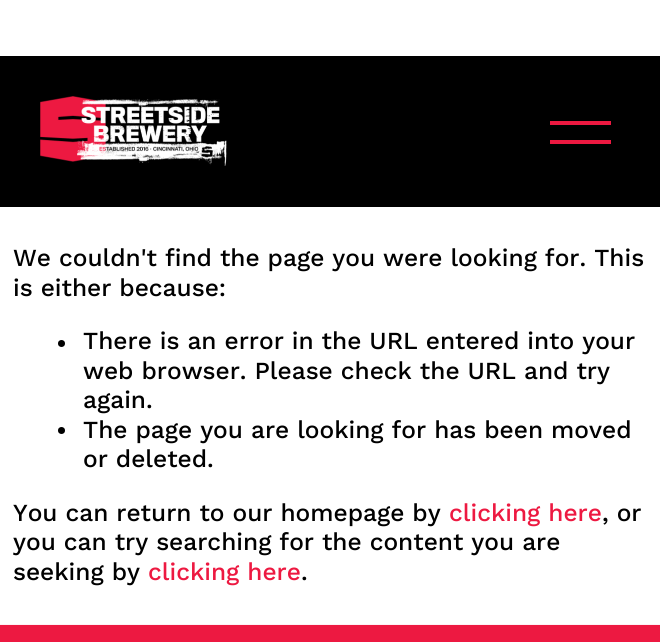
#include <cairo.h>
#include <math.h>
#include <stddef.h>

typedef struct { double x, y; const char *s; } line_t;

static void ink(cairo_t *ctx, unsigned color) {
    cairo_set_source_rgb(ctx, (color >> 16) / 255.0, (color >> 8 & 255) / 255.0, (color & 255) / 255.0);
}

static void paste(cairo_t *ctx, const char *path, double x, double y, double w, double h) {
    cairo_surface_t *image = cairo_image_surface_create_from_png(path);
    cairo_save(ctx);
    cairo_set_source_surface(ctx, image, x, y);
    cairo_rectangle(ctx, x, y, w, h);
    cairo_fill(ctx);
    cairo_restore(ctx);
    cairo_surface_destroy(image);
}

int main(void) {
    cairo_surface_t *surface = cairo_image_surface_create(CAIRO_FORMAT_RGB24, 660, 642);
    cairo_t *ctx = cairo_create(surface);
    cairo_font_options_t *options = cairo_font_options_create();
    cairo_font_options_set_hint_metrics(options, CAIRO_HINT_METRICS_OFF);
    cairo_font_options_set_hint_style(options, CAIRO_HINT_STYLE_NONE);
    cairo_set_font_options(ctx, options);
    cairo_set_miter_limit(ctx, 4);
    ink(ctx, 0xFFFFFF);
    cairo_paint(ctx);
    ink(ctx, 0x000000);
    cairo_rectangle(ctx, 0, 56, 660, 151);
    cairo_fill(ctx);
    paste(ctx, "media/1.png", 40, 96, 187, 70);
    ink(ctx, 0xED1941);
    cairo_rectangle(ctx, 550, 121, 61, 4);
    cairo_fill(ctx);
    cairo_rectangle(ctx, 550, 140, 61, 4);
    cairo_fill(ctx);
    cairo_select_font_face(ctx, "Work Sans Medium", CAIRO_FONT_SLANT_NORMAL, CAIRO_FONT_WEIGHT_NORMAL);
    cairo_set_font_size(ctx, 24.5);
    ink(ctx, 0x000000);
    cairo_move_to(ctx, 13, 266);
    cairo_show_text(ctx, "We couldn't find the page you were looking for. This");
    cairo_move_to(ctx, 13, 296);
    cairo_show_text(ctx, "is either because:");
    cairo_new_path(ctx);
    cairo_arc(ctx, 61.5, 343.5, 3.5, 0, 2 * M_PI);
    cairo_fill(ctx);
    {
        static const line_t items[] = {
            {83, 349, "There is an error in the URL entered into your"},
            {83, 379, "web browser. Please check the URL and try"},
            {83, 408, "again."},
        };
        for (size_t i = 0; i < sizeof items / sizeof *items; i++) {
            cairo_move_to(ctx, items[i].x, items[i].y);
            cairo_show_text(ctx, items[i].s);
        }
    }
    cairo_new_path(ctx);
    cairo_arc(ctx, 61.5, 430.5, 3.5, 0, 2 * M_PI);
    cairo_fill(ctx);
    {
        static const line_t items[] = {
            {83, 438, "The page you are looking for has been moved"},
            {83, 467, "or deleted."},
            {13, 521, "You can return to our homepage by"},
        };
        for (size_t i = 0; i < sizeof items / sizeof *items; i++) {
            cairo_move_to(ctx, items[i].x, items[i].y);
            cairo_show_text(ctx, items[i].s);
        }
    }
    ink(ctx, 0xED1941);
    cairo_move_to(ctx, 449, 521);
    cairo_show_text(ctx, "clicking here");
    ink(ctx, 0x000000);
    {
        static const line_t items[] = {
            {602, 521, ", or"},
            {13, 550, "you can try searching for the content you are"},
            {13, 580, "seeking by"},
        };
        for (size_t i = 0; i < sizeof items / sizeof *items; i++) {
            cairo_move_to(ctx, items[i].x, items[i].y);
            cairo_show_text(ctx, items[i].s);
        }
    }
    ink(ctx, 0xED1941);
    cairo_move_to(ctx, 148, 580);
    cairo_show_text(ctx, "clicking here");
    ink(ctx, 0x000000);
    cairo_move_to(ctx, 301, 580);
    cairo_show_text(ctx, ".");
    ink(ctx, 0xED1941);
    cairo_rectangle(ctx, 0, 625, 660, 17);
    cairo_fill(ctx);
    ink(ctx, 0xFEF1F4);
    cairo_rectangle(ctx, 0, 624, 660, 1);
    cairo_fill(ctx);
    cairo_surface_write_to_png(surface, "image.png");
    cairo_font_options_destroy(options);
    cairo_destroy(ctx);
    cairo_surface_destroy(surface);
    return 0;
}
